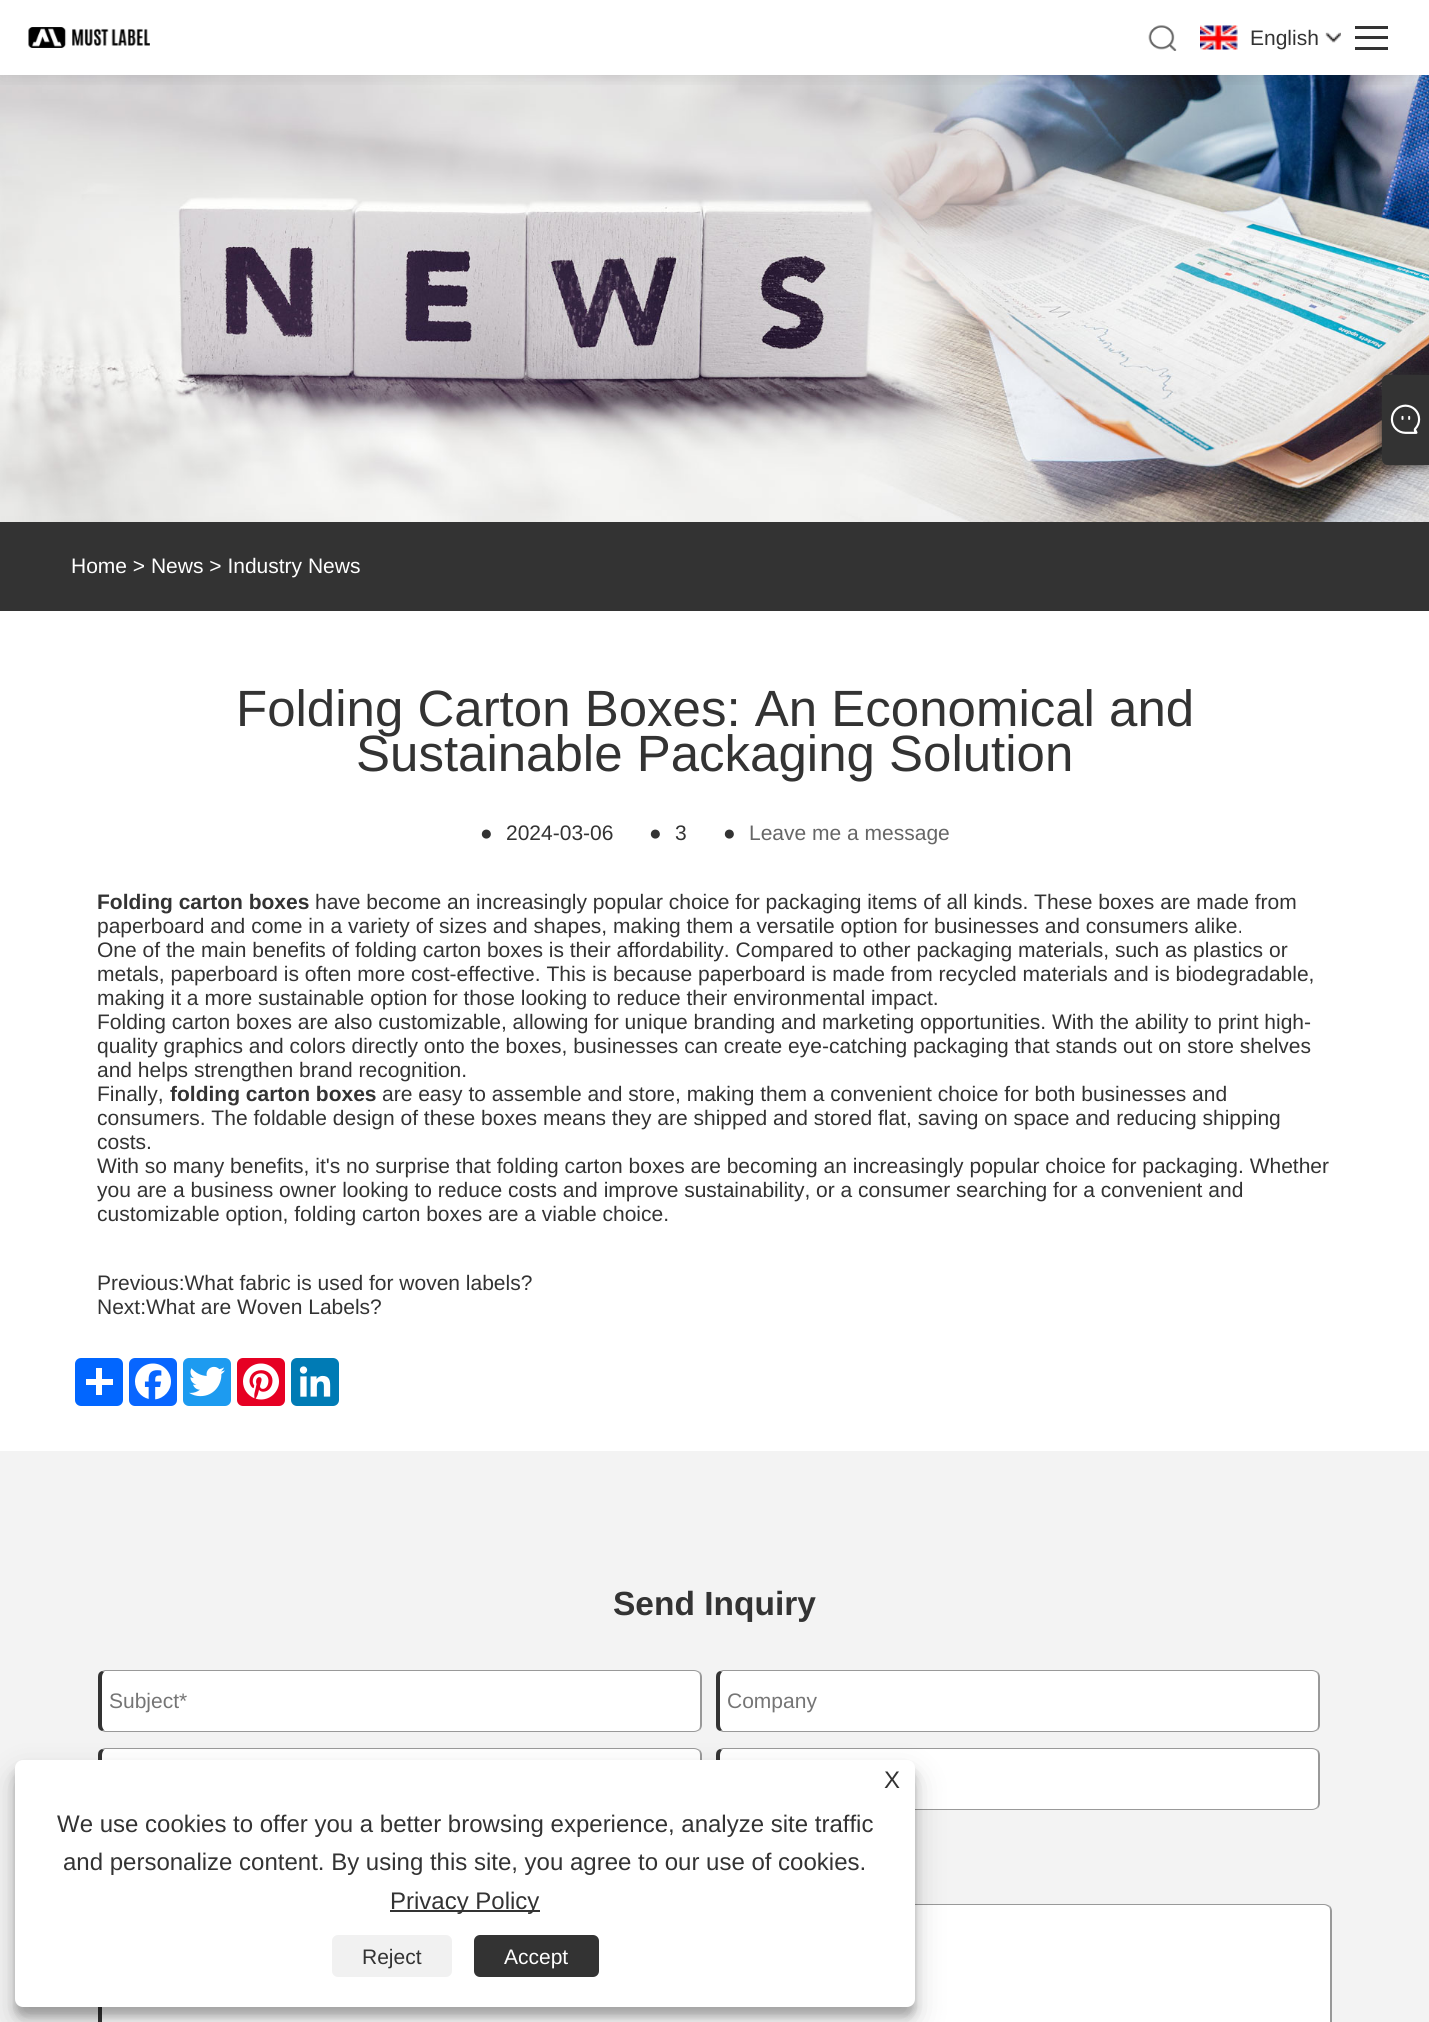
#include <cairo.h>
#include <math.h>
#include <stddef.h>

typedef struct { double x, y; const char *s; } line_t;
typedef struct { double x, y, w, h; unsigned color; } box_t;

static void ink(cairo_t *ctx, unsigned color) {
    cairo_set_source_rgb(ctx, (color >> 16) / 255.0, (color >> 8 & 255) / 255.0, (color & 255) / 255.0);
}

static void round_path(cairo_t *ctx, double x, double y, double w, double h, double r) {
    cairo_new_sub_path(ctx);
    cairo_arc(ctx, x + w - r, y + h - r, r, 0, M_PI / 2);
    cairo_arc(ctx, x + r, y + h - r, r, M_PI / 2, M_PI);
    cairo_arc(ctx, x + r, y + r, r, M_PI, 1.5 * M_PI);
    cairo_arc(ctx, x + w - r, y + r, r, 1.5 * M_PI, 2 * M_PI);
    cairo_close_path(ctx);
}

static void blur_box(cairo_t *ctx, double x, double y, double w, double h, double r, double blur, double alpha) {
    cairo_push_group_with_content(ctx, CAIRO_CONTENT_ALPHA);
    cairo_set_operator(ctx, CAIRO_OPERATOR_SOURCE);
    for (int i = 15; i >= -15 && fmin(w, h) + blur * i / 3 > 0; i -= 2) {
        double e = blur * i / 6;
        cairo_set_source_rgba(ctx, 0, 0, 0, alpha * erfc((i - 1) / 8.5) / 2);
        round_path(ctx, x - e, y - e, w + 2 * e, h + 2 * e, fmax(0, fmin(r + e + blur * .6, fmin(w, h) / 2 + e)));
        cairo_fill(ctx);
    }
    cairo_pattern_t *soft = cairo_pop_group(ctx);
    cairo_mask(ctx, soft);
    cairo_pattern_destroy(soft);
}

static void paste(cairo_t *ctx, const char *path, double x, double y, double w, double h) {
    cairo_surface_t *image = cairo_image_surface_create_from_png(path);
    cairo_save(ctx);
    cairo_set_source_surface(ctx, image, x, y);
    cairo_rectangle(ctx, x, y, w, h);
    cairo_fill(ctx);
    cairo_restore(ctx);
    cairo_surface_destroy(image);
}

int main(void) {
    cairo_surface_t *surface = cairo_image_surface_create(CAIRO_FORMAT_RGB24, 1429, 2022);
    cairo_t *ctx = cairo_create(surface);
    cairo_font_options_t *options = cairo_font_options_create();
    cairo_font_options_set_hint_metrics(options, CAIRO_HINT_METRICS_OFF);
    cairo_font_options_set_hint_style(options, CAIRO_HINT_STYLE_NONE);
    cairo_set_font_options(ctx, options);
    cairo_set_miter_limit(ctx, 4);
    ink(ctx, 0xFFFFFF);
    cairo_paint(ctx);
    paste(ctx, "media/5.png", 0, 75, 1429, 447);
    cairo_save(ctx);
    cairo_rectangle(ctx, 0, 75, 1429, 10);
    cairo_clip(ctx);
    ink(ctx, 0x000000);
    blur_box(ctx, 0, 2, 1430, 75, 0, 9, 0.1);
    cairo_restore(ctx);
    paste(ctx, "media/1.png", 28, 27, 122, 21);
    paste(ctx, "media/2.png", 1148, 25, 29, 26);
    paste(ctx, "media/3.png", 1325, 32, 16, 11);
    paste(ctx, "media/4.png", 1200, 25, 38, 25);
    cairo_select_font_face(ctx, "Liberation Sans", CAIRO_FONT_SLANT_NORMAL, CAIRO_FONT_WEIGHT_NORMAL);
    cairo_set_font_size(ctx, 21);
    ink(ctx, 0x333333);
    cairo_move_to(ctx, 1250, 45);
    cairo_show_text(ctx, "English");
    {
        static const box_t items[] = {
            {1355, 26, 33, 3, 0x333333},
            {1355, 36, 33, 3, 0x333333},
            {1355, 47, 33, 3, 0x333333},
            {0, 522, 1429, 89, 0x333333},
        };
        for (size_t i = 0; i < sizeof items / sizeof *items; i++) {
            ink(ctx, items[i].color);
            cairo_rectangle(ctx, items[i].x, items[i].y, items[i].w, items[i].h);
            cairo_fill(ctx);
        }
    }
    ink(ctx, 0xFFFFFF);
    cairo_move_to(ctx, 71, 573);
    cairo_show_text(ctx, "Home > News > Industry News");
    cairo_set_font_size(ctx, 51);
    ink(ctx, 0x333333);
    cairo_move_to(ctx, 236, 726);
    cairo_show_text(ctx, "Folding Carton Boxes: An Economical and");
    cairo_move_to(ctx, 356, 771);
    cairo_show_text(ctx, "Sustainable Packaging Solution");
    cairo_set_font_size(ctx, 21);
    {
        static const line_t items[] = {
            {480, 840, "●"},
            {506, 840, "2024-03-06"},
            {649, 840, "●"},
            {675, 840, "3"},
            {723, 840, "●"},
        };
        for (size_t i = 0; i < sizeof items / sizeof *items; i++) {
            cairo_move_to(ctx, items[i].x, items[i].y);
            cairo_show_text(ctx, items[i].s);
        }
    }
    ink(ctx, 0x666666);
    cairo_move_to(ctx, 749, 840);
    cairo_show_text(ctx, "Leave me a message");
    cairo_select_font_face(ctx, "Liberation Sans", CAIRO_FONT_SLANT_NORMAL, CAIRO_FONT_WEIGHT_BOLD);
    ink(ctx, 0x333333);
    cairo_move_to(ctx, 97, 909);
    cairo_show_text(ctx, "Folding carton boxes");
    cairo_select_font_face(ctx, "Liberation Sans", CAIRO_FONT_SLANT_NORMAL, CAIRO_FONT_WEIGHT_NORMAL);
    {
        static const line_t items[] = {
            {315, 909, "have become an increasingly popular choice for packaging items of all kinds. These boxes are made from"},
            {97, 933, "paperboard and come in a variety of sizes and shapes, making them a versatile option for businesses and consumers alike."},
            {97, 957, "One of the main benefits of folding carton boxes is their affordability. Compared to other packaging materials, such as plastics or"},
            {97, 981, "metals, paperboard is often more cost-effective. This is because paperboard is made from recycled materials and is biodegradable,"},
            {97, 1005, "making it a more sustainable option for those looking to reduce their environmental impact."},
            {97, 1029, "Folding carton boxes are also customizable, allowing for unique branding and marketing opportunities. With the ability to print high-"},
            {97, 1053, "quality graphics and colors directly onto the boxes, businesses can create eye-catching packaging that stands out on store shelves"},
            {97, 1077, "and helps strengthen brand recognition."},
            {97, 1101, "Finally,"},
        };
        for (size_t i = 0; i < sizeof items / sizeof *items; i++) {
            cairo_move_to(ctx, items[i].x, items[i].y);
            cairo_show_text(ctx, items[i].s);
        }
    }
    cairo_select_font_face(ctx, "Liberation Sans", CAIRO_FONT_SLANT_NORMAL, CAIRO_FONT_WEIGHT_BOLD);
    cairo_move_to(ctx, 170, 1101);
    cairo_show_text(ctx, "folding carton boxes");
    cairo_select_font_face(ctx, "Liberation Sans", CAIRO_FONT_SLANT_NORMAL, CAIRO_FONT_WEIGHT_NORMAL);
    {
        static const line_t items[] = {
            {382, 1101, "are easy to assemble and store, making them a convenient choice for both businesses and"},
            {97, 1125, "consumers. The foldable design of these boxes means they are shipped and stored flat, saving on space and reducing shipping"},
            {97, 1149, "costs."},
            {97, 1173, "With so many benefits, it's no surprise that folding carton boxes are becoming an increasingly popular choice for packaging. Whether"},
            {97, 1197, "you are a business owner looking to reduce costs and improve sustainability, or a consumer searching for a convenient and"},
            {97, 1221, "customizable option, folding carton boxes are a viable choice."},
            {97, 1290, "Previous:What fabric is used for woven labels?"},
            {97, 1314, "Next:What are Woven Labels?"},
        };
        for (size_t i = 0; i < sizeof items / sizeof *items; i++) {
            cairo_move_to(ctx, items[i].x, items[i].y);
            cairo_show_text(ctx, items[i].s);
        }
    }
    ink(ctx, 0x0166FF);
    round_path(ctx, 75, 1358, 48, 48, 6);
    cairo_fill(ctx);
    ink(ctx, 0xFFFFFF);
    cairo_rectangle(ctx, 96, 1368, 6, 27);
    cairo_fill(ctx);
    cairo_rectangle(ctx, 86, 1379, 27, 6);
    cairo_fill(ctx);
    ink(ctx, 0x0866FF);
    round_path(ctx, 129, 1358, 48, 48, 6);
    cairo_fill(ctx);
    paste(ctx, "media/6.png", 135, 1363, 36, 37);
    ink(ctx, 0x1D9BF0);
    round_path(ctx, 183, 1358, 48, 48, 6);
    cairo_fill(ctx);
    paste(ctx, "media/7.png", 189, 1366, 36, 31);
    ink(ctx, 0xE60023);
    round_path(ctx, 237, 1358, 48, 48, 6);
    cairo_fill(ctx);
    paste(ctx, "media/8.png", 243, 1363, 36, 37);
    ink(ctx, 0x007BB5);
    round_path(ctx, 291, 1358, 48, 48, 6);
    cairo_fill(ctx);
    paste(ctx, "media/9.png", 299, 1366, 32, 31);
    ink(ctx, 0xF3F3F3);
    cairo_rectangle(ctx, 0, 1451, 1429, 571);
    cairo_fill(ctx);
    cairo_select_font_face(ctx, "Liberation Sans", CAIRO_FONT_SLANT_NORMAL, CAIRO_FONT_WEIGHT_BOLD);
    cairo_set_font_size(ctx, 33.5);
    ink(ctx, 0x333333);
    cairo_move_to(ctx, 613, 1615);
    cairo_show_text(ctx, "Send Inquiry");
    ink(ctx, 0xFFFFFF);
    cairo_new_path(ctx);
    cairo_move_to(ctx, 105, 1671);
    cairo_line_to(ctx, 694, 1671);
    cairo_curve_to(ctx, 698, 1671, 700, 1674, 700, 1677);
    cairo_line_to(ctx, 700, 1725);
    cairo_curve_to(ctx, 700, 1728, 698, 1731, 694, 1731);
    cairo_line_to(ctx, 105, 1731);
    cairo_curve_to(ctx, 103, 1731, 102, 1728, 102, 1725);
    cairo_line_to(ctx, 102, 1677);
    cairo_curve_to(ctx, 102, 1674, 103, 1671, 105, 1671);
    cairo_close_path(ctx);
    cairo_fill(ctx);
    ink(ctx, 0x999999);
    cairo_new_path(ctx);
    cairo_move_to(ctx, 105, 1670);
    cairo_line_to(ctx, 102, 1671);
    cairo_line_to(ctx, 104, 1672);
    cairo_line_to(ctx, 105, 1671);
    cairo_line_to(ctx, 694, 1671);
    cairo_curve_to(ctx, 696, 1671, 698, 1672, 699, 1673);
    cairo_line_to(ctx, 700, 1672);
    cairo_curve_to(ctx, 698, 1671, 696, 1670, 694, 1670);
    cairo_close_path(ctx);
    cairo_fill(ctx);
    cairo_new_path(ctx);
    cairo_move_to(ctx, 700, 1672);
    cairo_curve_to(ctx, 701, 1673, 702, 1675, 702, 1677);
    cairo_line_to(ctx, 702, 1725);
    cairo_curve_to(ctx, 702, 1727, 701, 1729, 700, 1730);
    cairo_line_to(ctx, 699, 1729);
    cairo_curve_to(ctx, 700, 1728, 700, 1726, 700, 1725);
    cairo_line_to(ctx, 700, 1677);
    cairo_curve_to(ctx, 700, 1676, 700, 1674, 699, 1673);
    cairo_close_path(ctx);
    cairo_fill(ctx);
    cairo_new_path(ctx);
    cairo_move_to(ctx, 700, 1730);
    cairo_curve_to(ctx, 698, 1731, 696, 1732, 694, 1732);
    cairo_line_to(ctx, 105, 1732);
    cairo_line_to(ctx, 102, 1731);
    cairo_line_to(ctx, 104, 1730);
    cairo_line_to(ctx, 105, 1731);
    cairo_line_to(ctx, 694, 1731);
    cairo_curve_to(ctx, 696, 1731, 698, 1730, 699, 1729);
    cairo_close_path(ctx);
    cairo_fill(ctx);
    ink(ctx, 0x333333);
    cairo_new_path(ctx);
    cairo_move_to(ctx, 102, 1671);
    cairo_curve_to(ctx, 99, 1672, 98, 1674, 98, 1677);
    cairo_line_to(ctx, 98, 1725);
    cairo_curve_to(ctx, 98, 1728, 99, 1730, 102, 1731);
    cairo_line_to(ctx, 104, 1730);
    cairo_curve_to(ctx, 103, 1729, 102, 1727, 102, 1725);
    cairo_line_to(ctx, 102, 1677);
    cairo_curve_to(ctx, 102, 1675, 103, 1673, 104, 1672);
    cairo_close_path(ctx);
    cairo_fill(ctx);
    cairo_select_font_face(ctx, "Liberation Sans", CAIRO_FONT_SLANT_NORMAL, CAIRO_FONT_WEIGHT_NORMAL);
    cairo_set_font_size(ctx, 21);
    ink(ctx, 0x757575);
    cairo_move_to(ctx, 109, 1708);
    cairo_show_text(ctx, "Subject*");
    ink(ctx, 0xFFFFFF);
    cairo_new_path(ctx);
    cairo_move_to(ctx, 723, 1671);
    cairo_line_to(ctx, 1312, 1671);
    cairo_curve_to(ctx, 1316, 1671, 1318, 1674, 1318, 1677);
    cairo_line_to(ctx, 1318, 1725);
    cairo_curve_to(ctx, 1318, 1728, 1316, 1731, 1312, 1731);
    cairo_line_to(ctx, 723, 1731);
    cairo_curve_to(ctx, 721, 1731, 720, 1728, 720, 1725);
    cairo_line_to(ctx, 720, 1677);
    cairo_curve_to(ctx, 720, 1674, 721, 1671, 723, 1671);
    cairo_close_path(ctx);
    cairo_fill(ctx);
    ink(ctx, 0x999999);
    cairo_new_path(ctx);
    cairo_move_to(ctx, 723, 1670);
    cairo_line_to(ctx, 720, 1671);
    cairo_line_to(ctx, 722, 1672);
    cairo_line_to(ctx, 723, 1671);
    cairo_line_to(ctx, 1312, 1671);
    cairo_curve_to(ctx, 1314, 1671, 1316, 1672, 1317, 1673);
    cairo_line_to(ctx, 1318, 1672);
    cairo_curve_to(ctx, 1316, 1671, 1314, 1670, 1312, 1670);
    cairo_close_path(ctx);
    cairo_fill(ctx);
    cairo_new_path(ctx);
    cairo_move_to(ctx, 1318, 1672);
    cairo_curve_to(ctx, 1319, 1673, 1320, 1675, 1320, 1677);
    cairo_line_to(ctx, 1320, 1725);
    cairo_curve_to(ctx, 1320, 1727, 1319, 1729, 1318, 1730);
    cairo_line_to(ctx, 1317, 1729);
    cairo_curve_to(ctx, 1318, 1728, 1318, 1726, 1318, 1725);
    cairo_line_to(ctx, 1318, 1677);
    cairo_curve_to(ctx, 1318, 1676, 1318, 1674, 1317, 1673);
    cairo_close_path(ctx);
    cairo_fill(ctx);
    cairo_new_path(ctx);
    cairo_move_to(ctx, 1318, 1730);
    cairo_curve_to(ctx, 1316, 1731, 1314, 1732, 1312, 1732);
    cairo_line_to(ctx, 723, 1732);
    cairo_line_to(ctx, 720, 1731);
    cairo_line_to(ctx, 722, 1730);
    cairo_line_to(ctx, 723, 1731);
    cairo_line_to(ctx, 1312, 1731);
    cairo_curve_to(ctx, 1314, 1731, 1316, 1730, 1317, 1729);
    cairo_close_path(ctx);
    cairo_fill(ctx);
    ink(ctx, 0x333333);
    cairo_new_path(ctx);
    cairo_move_to(ctx, 720, 1671);
    cairo_curve_to(ctx, 717, 1672, 716, 1674, 716, 1677);
    cairo_line_to(ctx, 716, 1725);
    cairo_curve_to(ctx, 716, 1728, 717, 1730, 720, 1731);
    cairo_line_to(ctx, 722, 1730);
    cairo_curve_to(ctx, 721, 1729, 720, 1727, 720, 1725);
    cairo_line_to(ctx, 720, 1677);
    cairo_curve_to(ctx, 720, 1675, 721, 1673, 722, 1672);
    cairo_close_path(ctx);
    cairo_fill(ctx);
    cairo_save(ctx);
    cairo_rectangle(ctx, 728, 1689, 583, 24);
    cairo_clip(ctx);
    ink(ctx, 0x757575);
    cairo_move_to(ctx, 727, 1708);
    cairo_show_text(ctx, "Company");
    cairo_restore(ctx);
    ink(ctx, 0xFFFFFF);
    cairo_new_path(ctx);
    cairo_move_to(ctx, 105, 1749);
    cairo_line_to(ctx, 694, 1749);
    cairo_curve_to(ctx, 698, 1749, 700, 1752, 700, 1755);
    cairo_line_to(ctx, 700, 1803);
    cairo_curve_to(ctx, 700, 1806, 698, 1809, 694, 1809);
    cairo_line_to(ctx, 105, 1809);
    cairo_curve_to(ctx, 103, 1809, 102, 1806, 102, 1803);
    cairo_line_to(ctx, 102, 1755);
    cairo_curve_to(ctx, 102, 1752, 103, 1749, 105, 1749);
    cairo_close_path(ctx);
    cairo_fill(ctx);
    ink(ctx, 0x999999);
    cairo_new_path(ctx);
    cairo_move_to(ctx, 105, 1748);
    cairo_line_to(ctx, 102, 1749);
    cairo_line_to(ctx, 104, 1750);
    cairo_line_to(ctx, 105, 1749);
    cairo_line_to(ctx, 694, 1749);
    cairo_curve_to(ctx, 696, 1749, 698, 1750, 699, 1751);
    cairo_line_to(ctx, 700, 1750);
    cairo_curve_to(ctx, 698, 1749, 696, 1748, 694, 1748);
    cairo_close_path(ctx);
    cairo_fill(ctx);
    cairo_new_path(ctx);
    cairo_move_to(ctx, 700, 1750);
    cairo_curve_to(ctx, 701, 1751, 702, 1753, 702, 1755);
    cairo_line_to(ctx, 702, 1803);
    cairo_curve_to(ctx, 702, 1805, 701, 1807, 700, 1808);
    cairo_line_to(ctx, 699, 1807);
    cairo_curve_to(ctx, 700, 1806, 700, 1804, 700, 1803);
    cairo_line_to(ctx, 700, 1755);
    cairo_curve_to(ctx, 700, 1754, 700, 1752, 699, 1751);
    cairo_close_path(ctx);
    cairo_fill(ctx);
    ink(ctx, 0x333333);
    cairo_new_path(ctx);
    cairo_move_to(ctx, 102, 1749);
    cairo_curve_to(ctx, 99, 1750, 98, 1752, 98, 1755);
    cairo_line_to(ctx, 98, 1803);
    cairo_curve_to(ctx, 98, 1806, 99, 1808, 102, 1809);
    cairo_line_to(ctx, 104, 1808);
    cairo_curve_to(ctx, 103, 1807, 102, 1805, 102, 1803);
    cairo_line_to(ctx, 102, 1755);
    cairo_curve_to(ctx, 102, 1753, 103, 1751, 104, 1750);
    cairo_close_path(ctx);
    cairo_fill(ctx);
    ink(ctx, 0xFFFFFF);
    cairo_new_path(ctx);
    cairo_move_to(ctx, 723, 1749);
    cairo_line_to(ctx, 1312, 1749);
    cairo_curve_to(ctx, 1316, 1749, 1318, 1752, 1318, 1755);
    cairo_line_to(ctx, 1318, 1803);
    cairo_curve_to(ctx, 1318, 1806, 1316, 1809, 1312, 1809);
    cairo_line_to(ctx, 723, 1809);
    cairo_curve_to(ctx, 721, 1809, 720, 1806, 720, 1803);
    cairo_line_to(ctx, 720, 1755);
    cairo_curve_to(ctx, 720, 1752, 721, 1749, 723, 1749);
    cairo_close_path(ctx);
    cairo_fill(ctx);
    ink(ctx, 0x999999);
    cairo_new_path(ctx);
    cairo_move_to(ctx, 723, 1748);
    cairo_line_to(ctx, 720, 1749);
    cairo_line_to(ctx, 722, 1750);
    cairo_line_to(ctx, 723, 1749);
    cairo_line_to(ctx, 1312, 1749);
    cairo_curve_to(ctx, 1314, 1749, 1316, 1750, 1317, 1751);
    cairo_line_to(ctx, 1318, 1750);
    cairo_curve_to(ctx, 1316, 1749, 1314, 1748, 1312, 1748);
    cairo_close_path(ctx);
    cairo_fill(ctx);
    cairo_new_path(ctx);
    cairo_move_to(ctx, 1318, 1750);
    cairo_curve_to(ctx, 1319, 1751, 1320, 1753, 1320, 1755);
    cairo_line_to(ctx, 1320, 1803);
    cairo_curve_to(ctx, 1320, 1805, 1319, 1807, 1318, 1808);
    cairo_line_to(ctx, 1317, 1807);
    cairo_curve_to(ctx, 1318, 1806, 1318, 1804, 1318, 1803);
    cairo_line_to(ctx, 1318, 1755);
    cairo_curve_to(ctx, 1318, 1754, 1318, 1752, 1317, 1751);
    cairo_close_path(ctx);
    cairo_fill(ctx);
    cairo_new_path(ctx);
    cairo_move_to(ctx, 1318, 1808);
    cairo_curve_to(ctx, 1316, 1809, 1314, 1810, 1312, 1810);
    cairo_line_to(ctx, 723, 1810);
    cairo_line_to(ctx, 720, 1809);
    cairo_line_to(ctx, 722, 1808);
    cairo_line_to(ctx, 723, 1809);
    cairo_line_to(ctx, 1312, 1809);
    cairo_curve_to(ctx, 1314, 1809, 1316, 1808, 1317, 1807);
    cairo_close_path(ctx);
    cairo_fill(ctx);
    ink(ctx, 0x333333);
    cairo_new_path(ctx);
    cairo_move_to(ctx, 720, 1749);
    cairo_curve_to(ctx, 717, 1750, 716, 1752, 716, 1755);
    cairo_line_to(ctx, 716, 1803);
    cairo_curve_to(ctx, 716, 1806, 717, 1808, 720, 1809);
    cairo_line_to(ctx, 722, 1808);
    cairo_curve_to(ctx, 721, 1807, 720, 1805, 720, 1803);
    cairo_line_to(ctx, 720, 1755);
    cairo_curve_to(ctx, 720, 1753, 721, 1751, 722, 1750);
    cairo_close_path(ctx);
    cairo_fill(ctx);
    ink(ctx, 0xFFFFFF);
    cairo_new_path(ctx);
    cairo_move_to(ctx, 105, 1905);
    cairo_line_to(ctx, 1324, 1905);
    cairo_curve_to(ctx, 1328, 1905, 1330, 1908, 1330, 1911);
    cairo_line_to(ctx, 1330, 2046);
    cairo_curve_to(ctx, 1330, 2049, 1328, 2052, 1324, 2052);
    cairo_line_to(ctx, 105, 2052);
    cairo_curve_to(ctx, 103, 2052, 102, 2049, 102, 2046);
    cairo_line_to(ctx, 102, 1911);
    cairo_curve_to(ctx, 102, 1908, 103, 1905, 105, 1905);
    cairo_close_path(ctx);
    cairo_fill(ctx);
    ink(ctx, 0x999999);
    cairo_new_path(ctx);
    cairo_move_to(ctx, 105, 1904);
    cairo_line_to(ctx, 102, 1905);
    cairo_line_to(ctx, 104, 1906);
    cairo_line_to(ctx, 105, 1905);
    cairo_line_to(ctx, 1324, 1905);
    cairo_curve_to(ctx, 1326, 1905, 1327, 1906, 1329, 1907);
    cairo_line_to(ctx, 1330, 1906);
    cairo_curve_to(ctx, 1328, 1905, 1326, 1904, 1324, 1904);
    cairo_close_path(ctx);
    cairo_fill(ctx);
    cairo_new_path(ctx);
    cairo_move_to(ctx, 1330, 1906);
    cairo_curve_to(ctx, 1331, 1907, 1332, 1909, 1332, 1911);
    cairo_line_to(ctx, 1332, 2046);
    cairo_curve_to(ctx, 1332, 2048, 1331, 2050, 1330, 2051);
    cairo_line_to(ctx, 1329, 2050);
    cairo_curve_to(ctx, 1330, 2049, 1330, 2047, 1330, 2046);
    cairo_line_to(ctx, 1330, 1911);
    cairo_curve_to(ctx, 1330, 1910, 1330, 1908, 1329, 1907);
    cairo_close_path(ctx);
    cairo_fill(ctx);
    ink(ctx, 0x333333);
    cairo_new_path(ctx);
    cairo_move_to(ctx, 102, 1905);
    cairo_curve_to(ctx, 99, 1906, 98, 1908, 98, 1911);
    cairo_line_to(ctx, 98, 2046);
    cairo_curve_to(ctx, 98, 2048, 99, 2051, 101, 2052);
    cairo_line_to(ctx, 104, 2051);
    cairo_line_to(ctx, 102, 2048);
    cairo_line_to(ctx, 102, 1910);
    cairo_curve_to(ctx, 102, 1909, 102, 1907, 104, 1906);
    cairo_close_path(ctx);
    cairo_fill(ctx);
    ink(ctx, 0x333333);
    blur_box(ctx, 1382, 375, 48, 90, 6, 6, 1);
    ink(ctx, 0x333333);
    cairo_new_path(ctx);
    cairo_move_to(ctx, 1388, 375);
    cairo_line_to(ctx, 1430, 375);
    cairo_line_to(ctx, 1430, 465);
    cairo_line_to(ctx, 1388, 465);
    cairo_curve_to(ctx, 1384.5, 465, 1382, 462.5, 1382, 459);
    cairo_line_to(ctx, 1382, 381);
    cairo_curve_to(ctx, 1382, 377.5, 1384.5, 375, 1388, 375);
    cairo_close_path(ctx);
    cairo_fill(ctx);
    paste(ctx, "media/10.png", 1390, 404, 31, 30);
    ink(ctx, 0x000000);
    blur_box(ctx, 15, 1769, 900, 247, 8, 4.5, 0.23);
    blur_box(ctx, 15, 1775, 900, 247, 8, 15, 0.19);
    ink(ctx, 0xFFFFFF);
    round_path(ctx, 15, 1760, 900, 247, 8);
    cairo_fill(ctx);
    cairo_set_font_size(ctx, 24);
    ink(ctx, 0x333333);
    {
        static const line_t items[] = {
            {884, 1788, "X"},
            {57, 1832, "We use cookies to offer you a better browsing experience, analyze site traffic"},
            {63, 1870, "and personalize content. By using this site, you agree to our use of cookies."},
        };
        for (size_t i = 0; i < sizeof items / sizeof *items; i++) {
            cairo_move_to(ctx, items[i].x, items[i].y);
            cairo_show_text(ctx, items[i].s);
        }
    }
    cairo_rectangle(ctx, 390, 1910, 150, 2);
    cairo_fill(ctx);
    cairo_move_to(ctx, 390, 1909);
    cairo_show_text(ctx, "Privacy Policy");
    ink(ctx, 0xF1F1F1);
    round_path(ctx, 332, 1935, 120, 42, 6);
    cairo_fill(ctx);
    cairo_set_font_size(ctx, 21);
    ink(ctx, 0x333333);
    cairo_move_to(ctx, 362, 1964);
    cairo_show_text(ctx, "Reject");
    round_path(ctx, 474, 1935, 125, 42, 6);
    cairo_fill(ctx);
    ink(ctx, 0xFFFFFF);
    cairo_move_to(ctx, 504, 1964);
    cairo_show_text(ctx, "Accept");
    cairo_surface_write_to_png(surface, "image.png");
    cairo_font_options_destroy(options);
    cairo_destroy(ctx);
    cairo_surface_destroy(surface);
    return 0;
}
